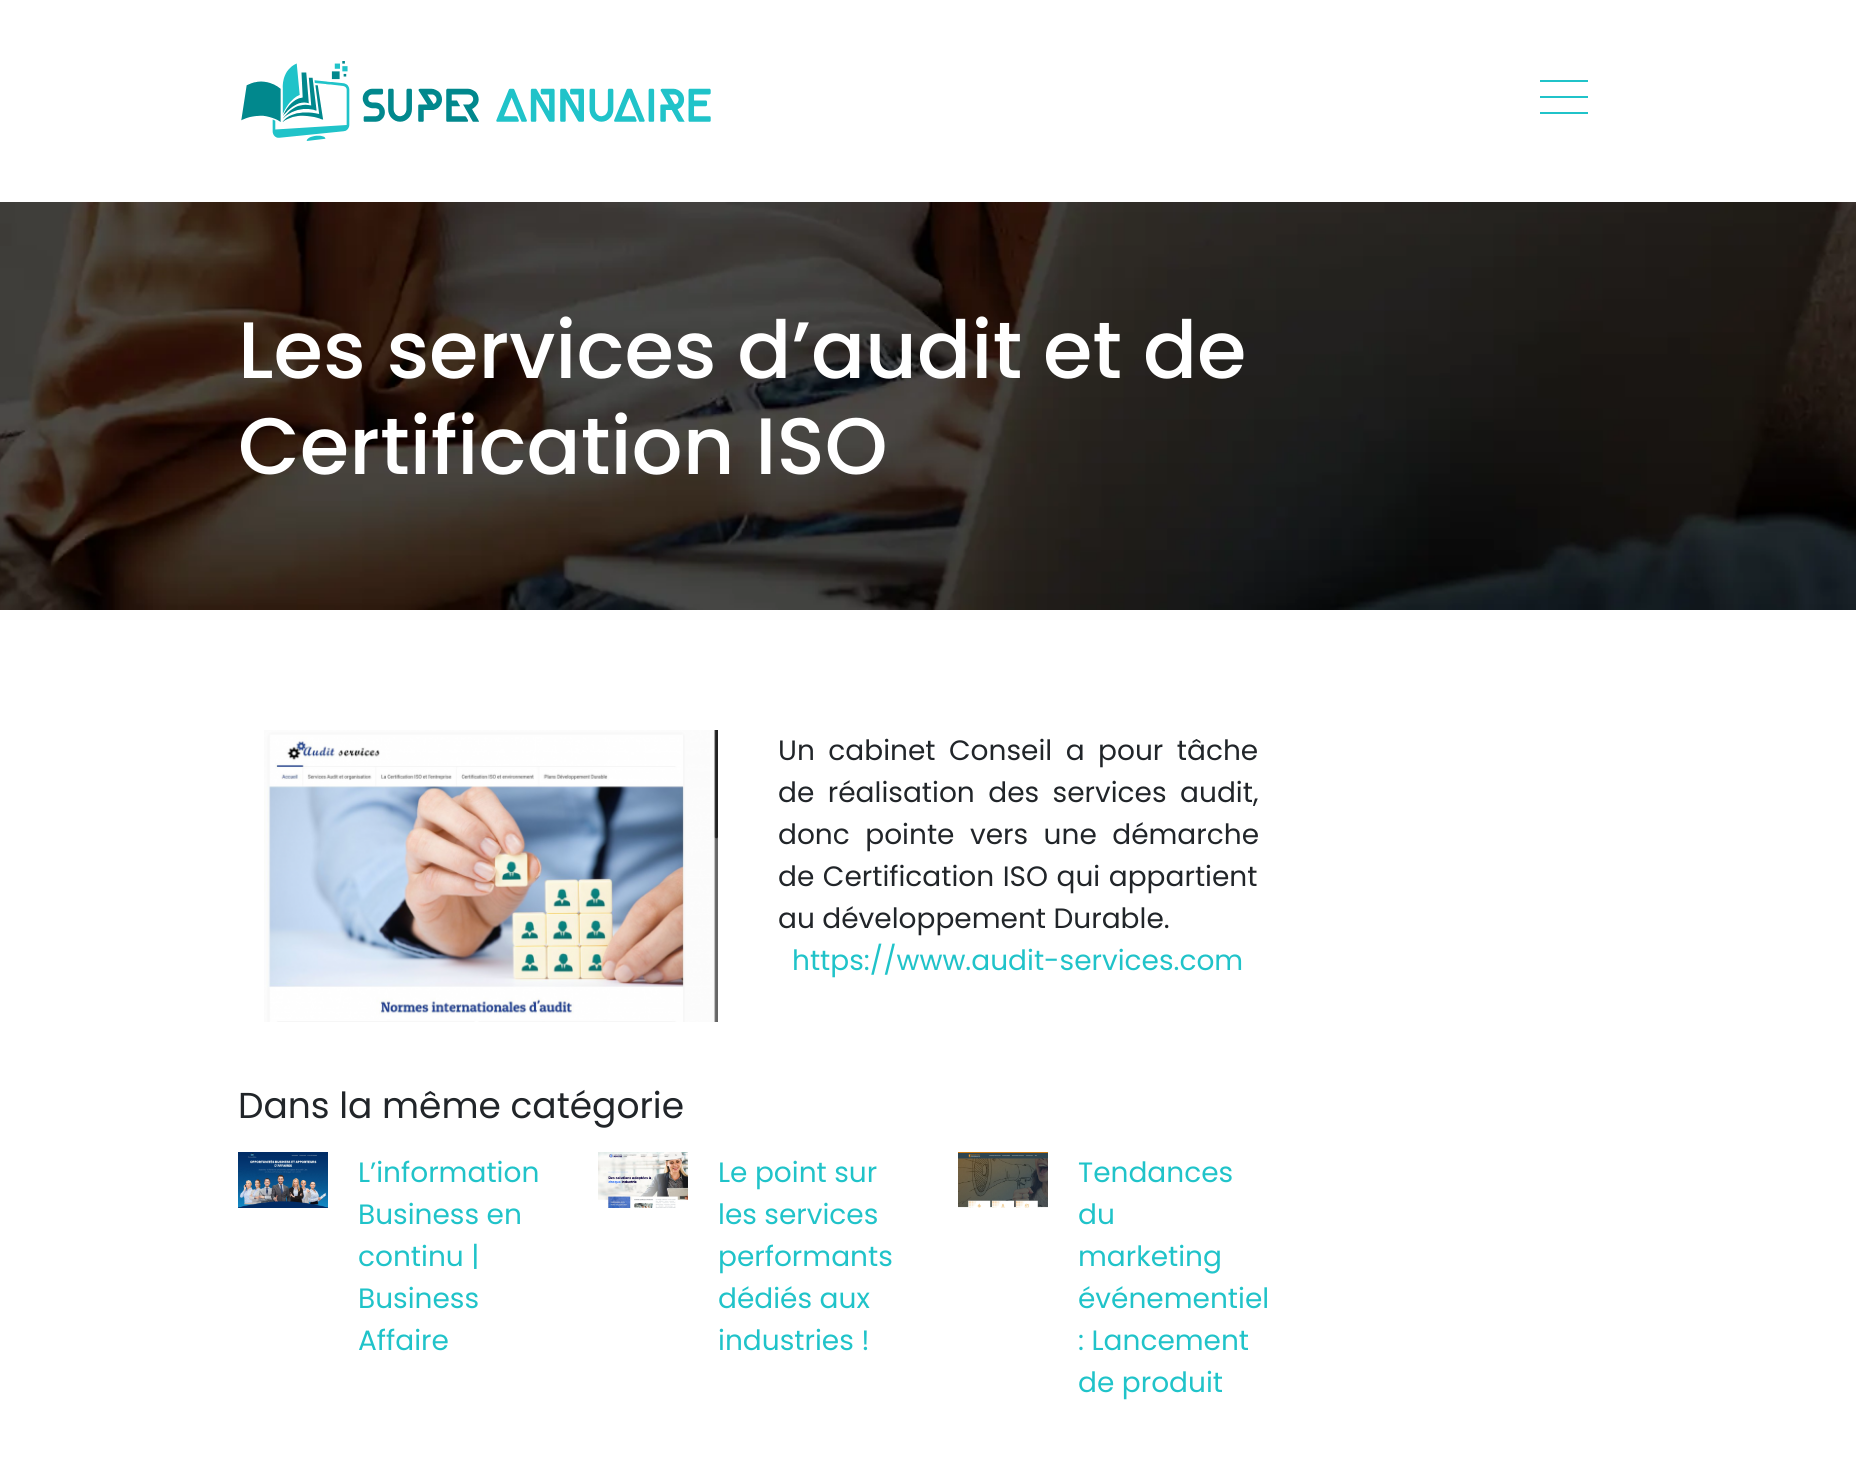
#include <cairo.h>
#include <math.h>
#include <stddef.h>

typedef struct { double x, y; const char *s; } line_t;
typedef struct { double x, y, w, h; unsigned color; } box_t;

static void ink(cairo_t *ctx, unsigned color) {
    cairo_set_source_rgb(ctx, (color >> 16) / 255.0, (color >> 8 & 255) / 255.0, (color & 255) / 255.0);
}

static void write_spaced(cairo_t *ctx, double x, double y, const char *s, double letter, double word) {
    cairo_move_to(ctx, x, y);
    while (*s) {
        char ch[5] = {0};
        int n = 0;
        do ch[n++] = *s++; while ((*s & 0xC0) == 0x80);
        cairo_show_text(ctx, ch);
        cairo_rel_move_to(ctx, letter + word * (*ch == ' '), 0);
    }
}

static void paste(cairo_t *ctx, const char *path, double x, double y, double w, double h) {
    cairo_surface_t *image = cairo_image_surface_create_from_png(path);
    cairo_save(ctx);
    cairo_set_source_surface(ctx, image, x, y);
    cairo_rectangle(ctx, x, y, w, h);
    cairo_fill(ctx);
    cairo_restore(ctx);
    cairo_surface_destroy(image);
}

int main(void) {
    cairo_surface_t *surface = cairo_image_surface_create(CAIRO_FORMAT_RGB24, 1856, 1477);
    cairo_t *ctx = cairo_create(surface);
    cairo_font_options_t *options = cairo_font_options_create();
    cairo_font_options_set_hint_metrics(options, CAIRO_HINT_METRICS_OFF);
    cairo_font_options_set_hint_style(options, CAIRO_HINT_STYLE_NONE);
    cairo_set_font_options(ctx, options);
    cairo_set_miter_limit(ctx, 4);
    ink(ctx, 0xFFFFFF);
    cairo_paint(ctx);
    paste(ctx, "media/1.png", 241, 61, 470, 80);
    {
        static const box_t items[] = {
            {1540, 80, 48, 2, 0x20C3C9},
            {1540, 96, 48, 2, 0x20C3C9},
            {1540, 112, 48, 2, 0x20C3C9},
        };
        for (size_t i = 0; i < sizeof items / sizeof *items; i++) {
            ink(ctx, items[i].color);
            cairo_rectangle(ctx, items[i].x, items[i].y, items[i].w, items[i].h);
            cairo_fill(ctx);
        }
    }
    paste(ctx, "media/2.png", 0, 202, 1856, 408);
    cairo_select_font_face(ctx, "Poppins Medium", CAIRO_FONT_SLANT_NORMAL, CAIRO_FONT_WEIGHT_NORMAL);
    cairo_set_font_size(ctx, 80);
    ink(ctx, 0xFFFFFF);
    cairo_move_to(ctx, 238, 378);
    cairo_show_text(ctx, "Les services d’audit et de");
    cairo_move_to(ctx, 238, 474);
    cairo_show_text(ctx, "Certification ISO");
    paste(ctx, "media/3.png", 264, 730, 454, 292);
    cairo_select_font_face(ctx, "Poppins", CAIRO_FONT_SLANT_NORMAL, CAIRO_FONT_WEIGHT_NORMAL);
    cairo_set_font_size(ctx, 28);
    ink(ctx, 0x212529);
    write_spaced(ctx, 778, 760, "Un cabinet Conseil a pour tâche", 0, 6);
    write_spaced(ctx, 778, 802, "de réalisation des services audit,", 0, 6);
    write_spaced(ctx, 778, 844, "donc pointe vers une démarche", 0, 8);
    write_spaced(ctx, 778, 886, "de Certification ISO qui appartient", 0, 1);
    cairo_move_to(ctx, 778, 928);
    cairo_show_text(ctx, "au développement Durable.");
    ink(ctx, 0x20C3C9);
    cairo_move_to(ctx, 792, 970);
    cairo_show_text(ctx, "https://www.audit-services.com");
    cairo_set_font_size(ctx, 36);
    ink(ctx, 0x212529);
    cairo_move_to(ctx, 238, 1118);
    cairo_show_text(ctx, "Dans la même catégorie");
    paste(ctx, "media/4.png", 238, 1152, 90, 56);
    cairo_set_font_size(ctx, 28);
    ink(ctx, 0x20C3C9);
    {
        static const line_t items[] = {
            {358, 1182, "L’information"},
            {358, 1224, "Business en"},
            {358, 1266, "continu |"},
            {358, 1308, "Business"},
            {358, 1350, "Affaire"},
        };
        for (size_t i = 0; i < sizeof items / sizeof *items; i++) {
            cairo_move_to(ctx, items[i].x, items[i].y);
            cairo_show_text(ctx, items[i].s);
        }
    }
    paste(ctx, "media/5.png", 598, 1152, 90, 56);
    {
        static const line_t items[] = {
            {718, 1182, "Le point sur"},
            {718, 1224, "les services"},
            {718, 1266, "performants"},
            {718, 1308, "dédiés aux"},
            {718, 1350, "industries !"},
        };
        for (size_t i = 0; i < sizeof items / sizeof *items; i++) {
            cairo_move_to(ctx, items[i].x, items[i].y);
            cairo_show_text(ctx, items[i].s);
        }
    }
    paste(ctx, "media/6.png", 958, 1152, 90, 56);
    {
        static const line_t items[] = {
            {1078, 1182, "Tendances"},
            {1078, 1224, "du"},
            {1078, 1266, "marketing"},
            {1078, 1308, "événementiel"},
            {1078, 1350, ": Lancement"},
            {1078, 1392, "de produit"},
        };
        for (size_t i = 0; i < sizeof items / sizeof *items; i++) {
            cairo_move_to(ctx, items[i].x, items[i].y);
            cairo_show_text(ctx, items[i].s);
        }
    }
    cairo_surface_write_to_png(surface, "image.png");
    cairo_font_options_destroy(options);
    cairo_destroy(ctx);
    cairo_surface_destroy(surface);
    return 0;
}
